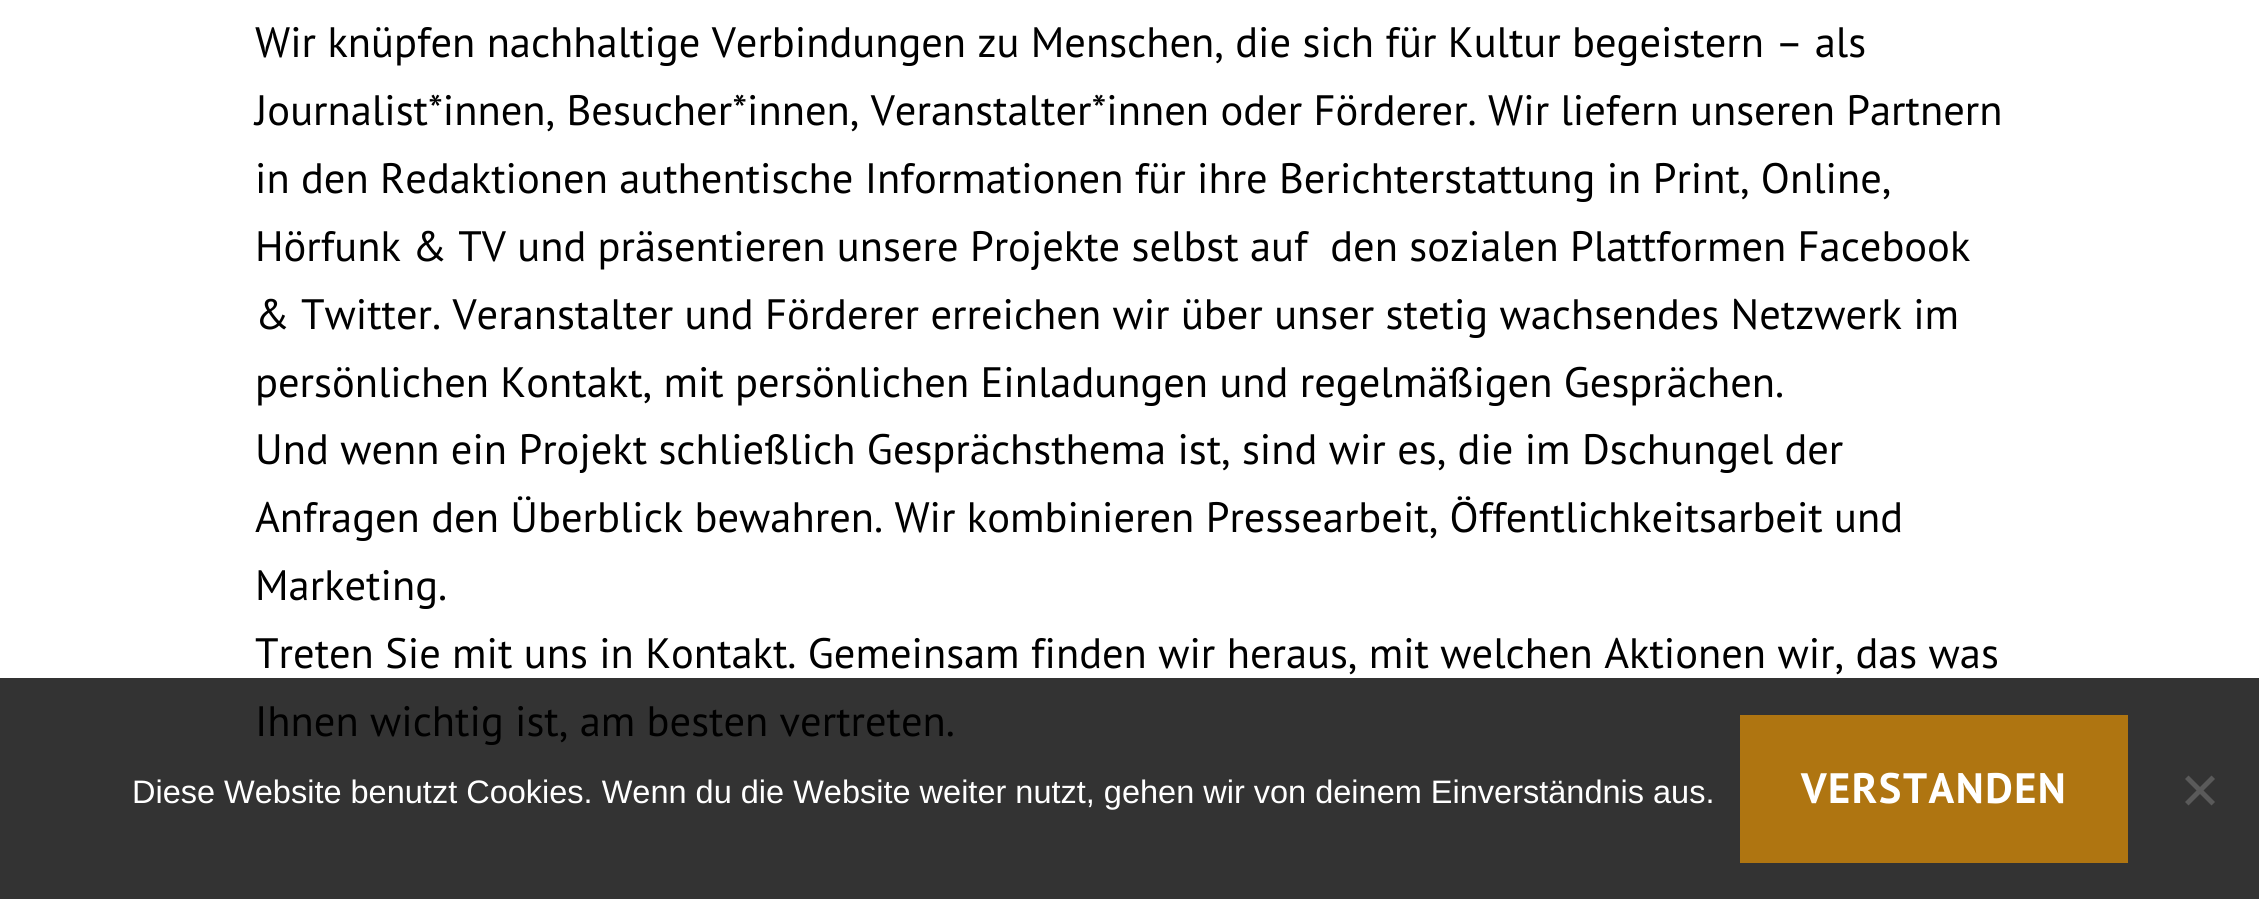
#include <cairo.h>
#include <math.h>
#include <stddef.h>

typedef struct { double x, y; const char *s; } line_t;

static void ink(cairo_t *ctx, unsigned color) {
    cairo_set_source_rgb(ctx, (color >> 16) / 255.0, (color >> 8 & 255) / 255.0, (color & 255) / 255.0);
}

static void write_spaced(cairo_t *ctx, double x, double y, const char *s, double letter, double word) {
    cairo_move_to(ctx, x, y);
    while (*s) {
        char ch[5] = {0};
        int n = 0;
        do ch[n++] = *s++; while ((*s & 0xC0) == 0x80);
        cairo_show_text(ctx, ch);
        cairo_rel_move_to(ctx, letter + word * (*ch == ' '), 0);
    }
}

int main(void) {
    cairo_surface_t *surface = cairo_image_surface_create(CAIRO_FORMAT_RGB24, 2259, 899);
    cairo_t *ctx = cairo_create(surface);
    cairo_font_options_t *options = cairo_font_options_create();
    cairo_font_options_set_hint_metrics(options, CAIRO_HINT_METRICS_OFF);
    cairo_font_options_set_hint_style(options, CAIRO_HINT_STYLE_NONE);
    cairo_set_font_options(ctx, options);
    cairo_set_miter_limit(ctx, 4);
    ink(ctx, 0xFFFFFF);
    cairo_paint(ctx);
    ink(ctx, 0x333333);
    cairo_rectangle(ctx, 0, 678, 2259, 221);
    cairo_fill(ctx);
    cairo_select_font_face(ctx, "PT Sans", CAIRO_FONT_SLANT_NORMAL, CAIRO_FONT_WEIGHT_NORMAL);
    cairo_set_font_size(ctx, 42.5);
    ink(ctx, 0x000000);
    {
        static const line_t items[] = {
            {255, 57, "Wir knüpfen nachhaltige Verbindungen zu Menschen, die sich für Kultur begeistern – als"},
            {255, 125, "Journalist*innen, Besucher*innen, Veranstalter*innen oder Förderer. Wir liefern unseren Partnern"},
            {255, 193, "in den Redaktionen authentische Informationen für ihre Berichterstattung in Print, Online,"},
            {255, 261, "Hörfunk & TV und präsentieren unsere Projekte selbst auf  den sozialen Plattformen Facebook"},
            {255, 329, "& Twitter. Veranstalter und Förderer erreichen wir über unser stetig wachsendes Netzwerk im"},
            {255, 397, "persönlichen Kontakt, mit persönlichen Einladungen und regelmäßigen Gesprächen."},
            {255, 464, "Und wenn ein Projekt schließlich Gesprächsthema ist, sind wir es, die im Dschungel der"},
            {255, 532, "Anfragen den Überblick bewahren. Wir kombinieren Pressearbeit, Öffentlichkeitsarbeit und"},
            {255, 600, "Marketing."},
            {255, 668, "Treten Sie mit uns in Kontakt. Gemeinsam finden wir heraus, mit welchen Aktionen wir, das was"},
            {255, 736, "Ihnen wichtig ist, am besten vertreten."},
        };
        for (size_t i = 0; i < sizeof items / sizeof *items; i++) {
            cairo_move_to(ctx, items[i].x, items[i].y);
            cairo_show_text(ctx, items[i].s);
        }
    }
    cairo_select_font_face(ctx, "Liberation Sans", CAIRO_FONT_SLANT_NORMAL, CAIRO_FONT_WEIGHT_NORMAL);
    cairo_set_font_size(ctx, 32.5);
    ink(ctx, 0xFFFFFF);
    cairo_move_to(ctx, 132, 803);
    cairo_show_text(ctx, "Diese Website benutzt Cookies. Wenn du die Website weiter nutzt, gehen wir von deinem Einverständnis aus.");
    ink(ctx, 0xAF7511);
    cairo_rectangle(ctx, 1740, 715, 388, 148);
    cairo_fill(ctx);
    cairo_select_font_face(ctx, "PT Sans", CAIRO_FONT_SLANT_NORMAL, CAIRO_FONT_WEIGHT_BOLD);
    cairo_set_font_size(ctx, 42.5);
    ink(ctx, 0xFFFFFF);
    write_spaced(ctx, 1801, 803, "VERSTANDEN", 1.5, 0);
    ink(ctx, 0x5A5A5A);
    cairo_new_path(ctx);
    cairo_move_to(ctx, 2211.5, 775.5);
    cairo_line_to(ctx, 2215, 779);
    cairo_line_to(ctx, 2188.5, 805.5);
    cairo_line_to(ctx, 2185, 802);
    cairo_close_path(ctx);
    cairo_fill(ctx);
    cairo_new_path(ctx);
    cairo_move_to(ctx, 2185, 779);
    cairo_line_to(ctx, 2188.5, 775.5);
    cairo_line_to(ctx, 2215, 802);
    cairo_line_to(ctx, 2211.5, 805.5);
    cairo_close_path(ctx);
    cairo_fill(ctx);
    cairo_surface_write_to_png(surface, "image.png");
    cairo_font_options_destroy(options);
    cairo_destroy(ctx);
    cairo_surface_destroy(surface);
    return 0;
}
